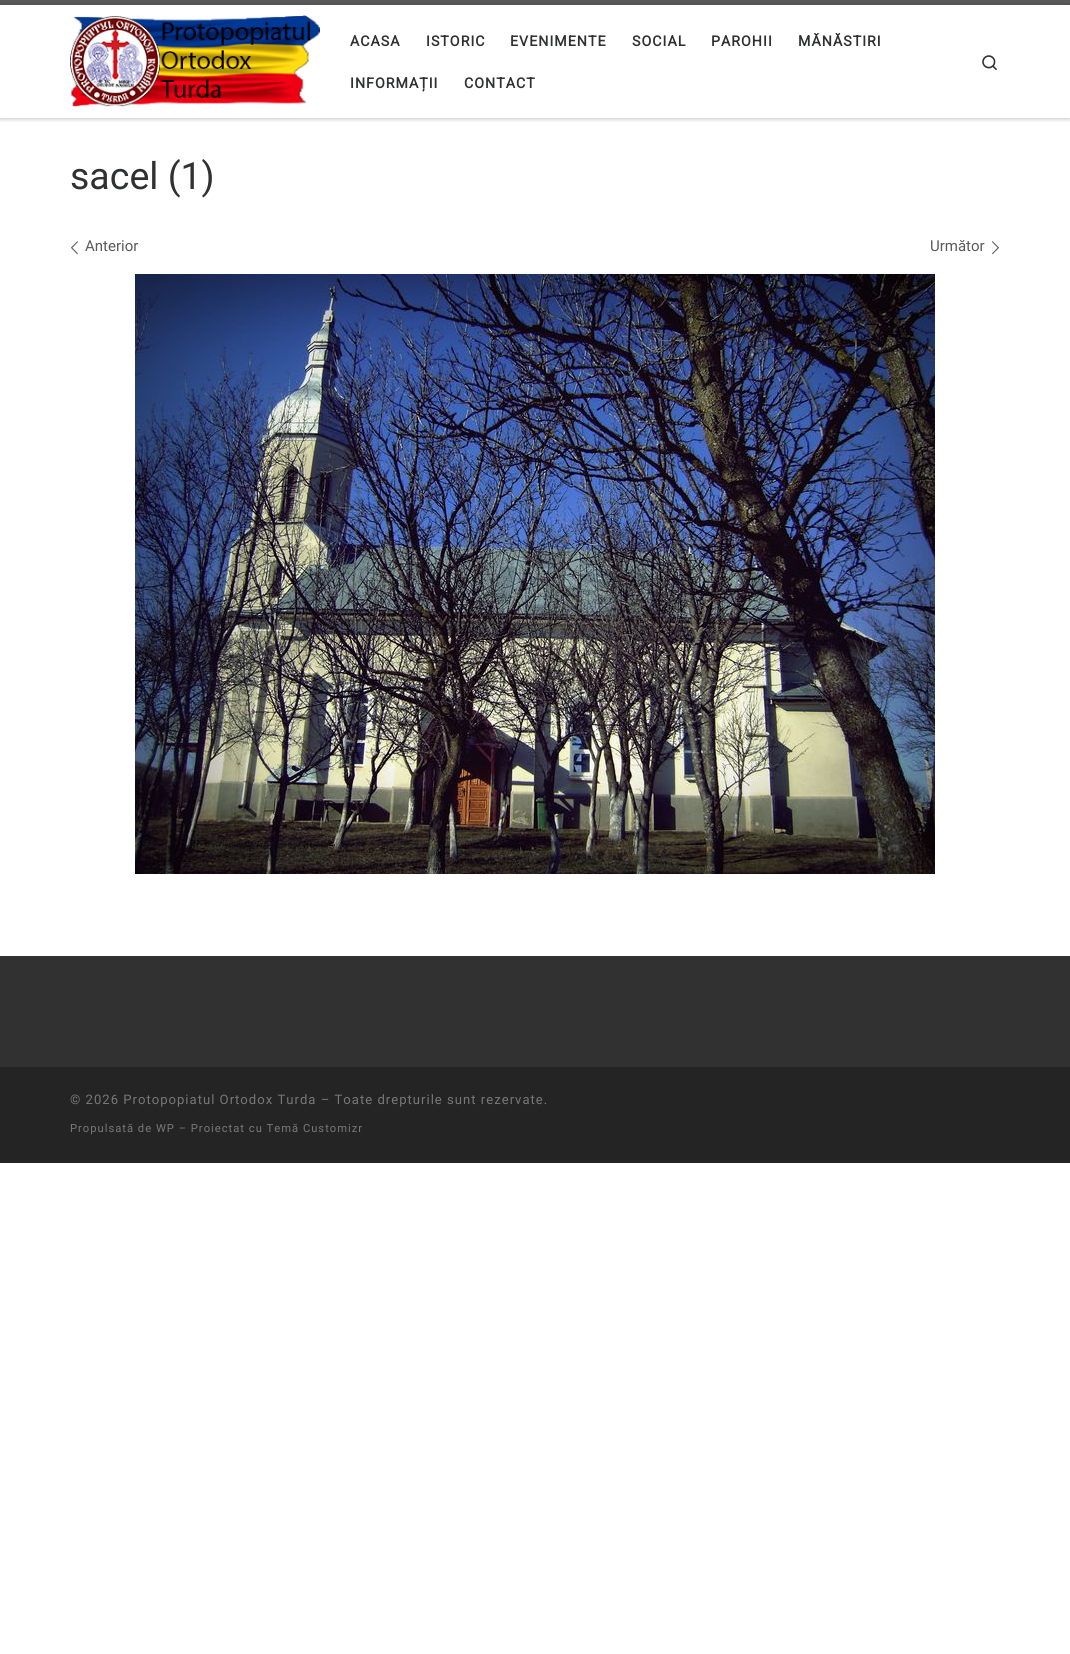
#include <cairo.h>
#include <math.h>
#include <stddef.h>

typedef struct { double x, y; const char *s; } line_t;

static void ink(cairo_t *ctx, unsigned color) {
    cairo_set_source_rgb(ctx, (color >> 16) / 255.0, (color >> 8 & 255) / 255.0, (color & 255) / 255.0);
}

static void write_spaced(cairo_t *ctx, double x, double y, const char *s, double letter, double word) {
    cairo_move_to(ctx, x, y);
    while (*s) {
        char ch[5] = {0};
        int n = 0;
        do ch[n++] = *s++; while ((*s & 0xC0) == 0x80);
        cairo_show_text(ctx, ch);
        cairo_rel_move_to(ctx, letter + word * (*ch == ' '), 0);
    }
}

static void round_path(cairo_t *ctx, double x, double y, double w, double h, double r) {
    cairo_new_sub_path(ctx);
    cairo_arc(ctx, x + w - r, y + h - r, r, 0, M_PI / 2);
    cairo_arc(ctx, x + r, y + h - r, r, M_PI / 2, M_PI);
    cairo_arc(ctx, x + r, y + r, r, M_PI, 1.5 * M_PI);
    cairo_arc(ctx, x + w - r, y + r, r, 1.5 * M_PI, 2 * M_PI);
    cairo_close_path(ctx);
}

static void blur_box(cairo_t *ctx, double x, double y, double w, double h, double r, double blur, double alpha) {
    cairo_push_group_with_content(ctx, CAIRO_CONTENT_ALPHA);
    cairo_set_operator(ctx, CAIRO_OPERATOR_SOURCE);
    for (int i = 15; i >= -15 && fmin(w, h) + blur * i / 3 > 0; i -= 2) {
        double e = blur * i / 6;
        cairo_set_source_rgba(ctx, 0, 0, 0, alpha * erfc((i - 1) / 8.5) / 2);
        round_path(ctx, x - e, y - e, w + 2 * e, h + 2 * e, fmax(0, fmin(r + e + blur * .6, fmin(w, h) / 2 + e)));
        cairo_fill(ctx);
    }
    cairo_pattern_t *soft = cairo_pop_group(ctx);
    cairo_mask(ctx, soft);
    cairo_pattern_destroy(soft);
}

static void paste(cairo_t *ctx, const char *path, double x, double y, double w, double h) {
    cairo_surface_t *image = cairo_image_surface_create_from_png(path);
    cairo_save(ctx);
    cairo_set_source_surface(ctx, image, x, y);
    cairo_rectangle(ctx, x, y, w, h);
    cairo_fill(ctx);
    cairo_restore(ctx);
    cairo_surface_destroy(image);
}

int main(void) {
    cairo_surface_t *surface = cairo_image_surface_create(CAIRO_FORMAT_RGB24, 1070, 1654);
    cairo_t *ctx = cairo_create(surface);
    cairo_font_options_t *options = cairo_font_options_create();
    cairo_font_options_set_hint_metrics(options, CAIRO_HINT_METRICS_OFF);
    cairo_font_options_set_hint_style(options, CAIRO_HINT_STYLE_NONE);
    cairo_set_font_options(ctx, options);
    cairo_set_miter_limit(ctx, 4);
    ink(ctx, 0xFFFFFF);
    cairo_paint(ctx);
    cairo_save(ctx);
    cairo_rectangle(ctx, 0, 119, 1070, 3);
    cairo_clip(ctx);
    ink(ctx, 0x666666);
    blur_box(ctx, 0, 2, 1070, 119, 0, 1, 0.08);
    cairo_restore(ctx);
    ink(ctx, 0x5A5A5A);
    cairo_rectangle(ctx, 0, 0, 1070, 5);
    cairo_fill(ctx);
    ink(ctx, 0xEFEFEF);
    cairo_rectangle(ctx, 0, 118, 1070, 1);
    cairo_fill(ctx);
    cairo_save(ctx);
    cairo_set_fill_rule(ctx, CAIRO_FILL_RULE_EVEN_ODD);
    cairo_new_path(ctx);
    cairo_move_to(ctx, 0, 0);
    cairo_line_to(ctx, 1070, 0);
    cairo_line_to(ctx, 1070, 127);
    cairo_line_to(ctx, 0, 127);
    cairo_close_path(ctx);
    cairo_move_to(ctx, 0, 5);
    cairo_line_to(ctx, 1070, 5);
    cairo_line_to(ctx, 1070, 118);
    cairo_line_to(ctx, 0, 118);
    cairo_close_path(ctx);
    cairo_clip(ctx);
    ink(ctx, 0x000000);
    blur_box(ctx, 0, 5, 1070, 113, 0, 2.5, 0.2);
    cairo_restore(ctx);
    paste(ctx, "media/1.png", 70, 15, 250, 92);
    cairo_select_font_face(ctx, "Roboto", CAIRO_FONT_SLANT_NORMAL, CAIRO_FONT_WEIGHT_BOLD);
    cairo_set_font_size(ctx, 14.25);
    ink(ctx, 0x303133);
    {
        static const line_t items[] = {
            {350, 46, "ACASA"},
            {426, 46, "ISTORIC"},
            {510, 46, "EVENIMENTE"},
            {632, 46, "SOCIAL"},
            {711, 46, "PAROHII"},
            {798, 46, "MĂNĂSTIRI"},
            {350, 88, "INFORMAȚII"},
            {464, 88, "CONTACT"},
        };
        for (size_t i = 0; i < sizeof items / sizeof *items; i++) {
            write_spaced(ctx, items[i].x, items[i].y, items[i].s, 1, 0);
        }
    }
    paste(ctx, "media/2.png", 982, 55, 15, 16);
    cairo_select_font_face(ctx, "Roboto", CAIRO_FONT_SLANT_NORMAL, CAIRO_FONT_WEIGHT_NORMAL);
    cairo_set_font_size(ctx, 37.5);
    cairo_move_to(ctx, 70, 189);
    cairo_show_text(ctx, "sacel (1)");
    paste(ctx, "media/3.png", 71, 241, 7, 14);
    cairo_set_font_size(ctx, 15);
    ink(ctx, 0x5A5A5A);
    cairo_move_to(ctx, 85, 251);
    cairo_show_text(ctx, "Anterior");
    cairo_move_to(ctx, 930, 251);
    cairo_show_text(ctx, "Următor");
    paste(ctx, "media/4.png", 992, 241, 7, 14);
    paste(ctx, "media/5.png", 135, 274, 800, 600);
    ink(ctx, 0x313131);
    cairo_rectangle(ctx, 0, 956, 1070, 111);
    cairo_fill(ctx);
    ink(ctx, 0x242424);
    cairo_rectangle(ctx, 0, 1067, 1070, 96);
    cairo_fill(ctx);
    cairo_set_font_size(ctx, 13.1);
    ink(ctx, 0x777777);
    write_spaced(ctx, 70, 1104, "© 2026 Protopopiatul Ortodox Turda – Toate drepturile sunt rezervate.", 1, 0);
    cairo_set_font_size(ctx, 11.2);
    write_spaced(ctx, 70, 1132, "Propulsată de WP – Proiectat cu Temă Customizr", 1, 0);
    cairo_surface_write_to_png(surface, "image.png");
    cairo_font_options_destroy(options);
    cairo_destroy(ctx);
    cairo_surface_destroy(surface);
    return 0;
}
